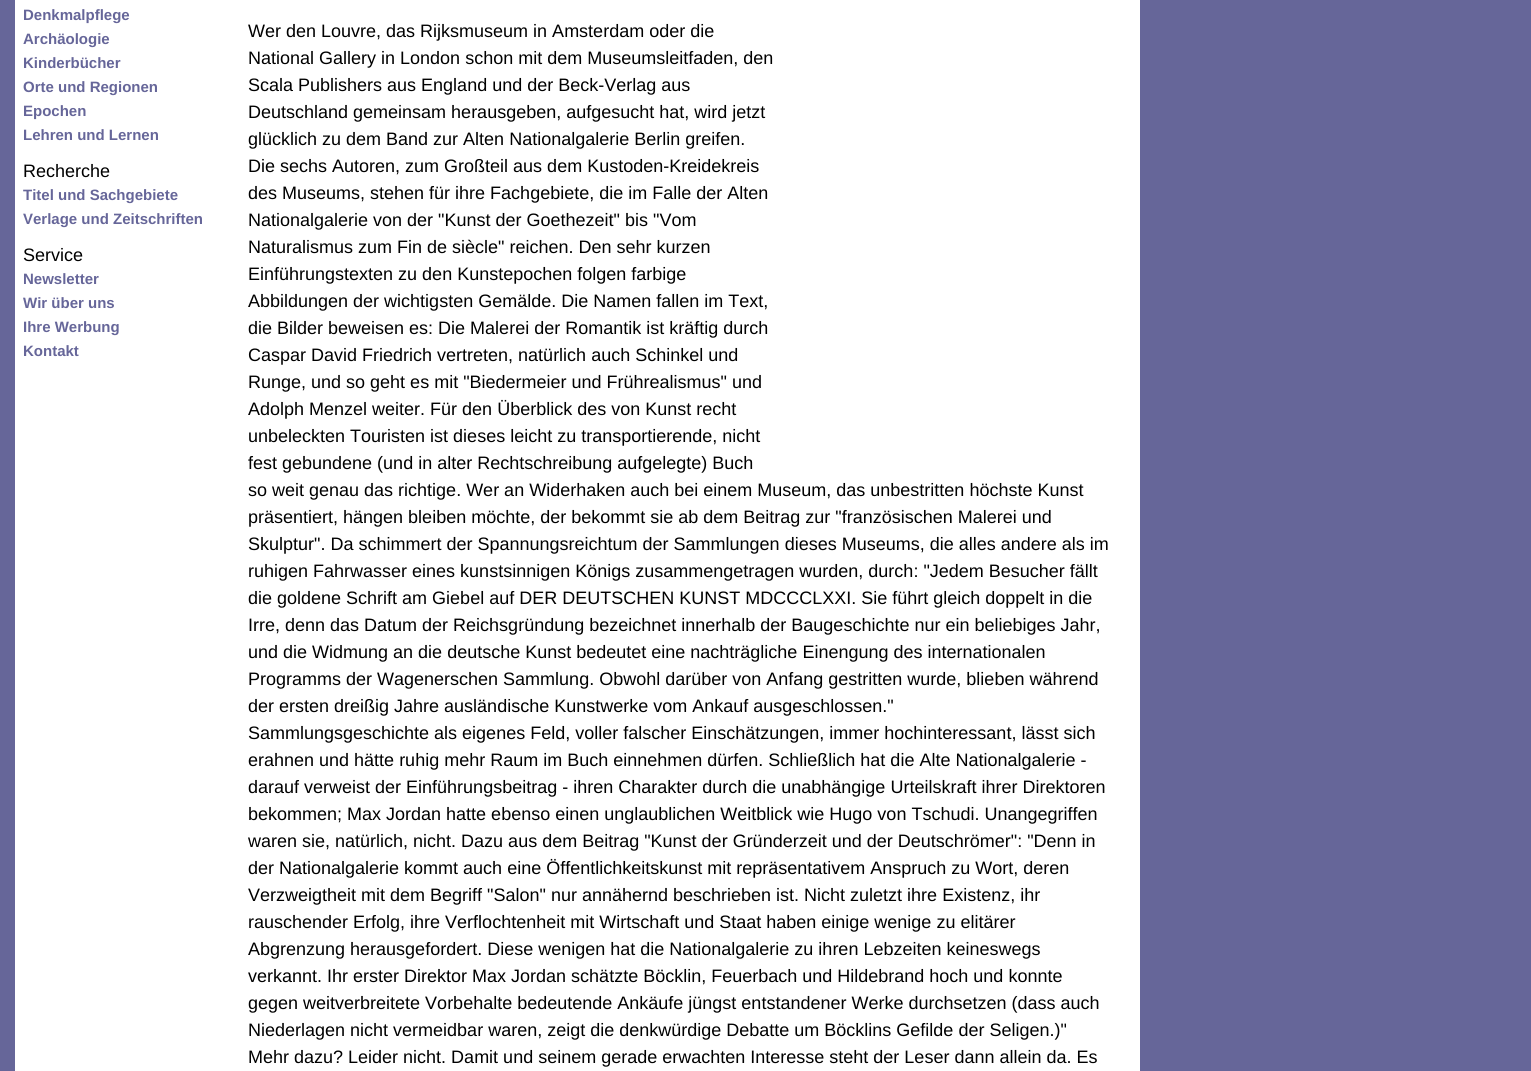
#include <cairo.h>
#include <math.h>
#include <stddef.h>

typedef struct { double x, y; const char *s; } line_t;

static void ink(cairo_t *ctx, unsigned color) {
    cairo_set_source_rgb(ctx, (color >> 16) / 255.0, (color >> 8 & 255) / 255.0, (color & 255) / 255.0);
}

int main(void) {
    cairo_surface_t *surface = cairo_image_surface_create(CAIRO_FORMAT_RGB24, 1531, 1071);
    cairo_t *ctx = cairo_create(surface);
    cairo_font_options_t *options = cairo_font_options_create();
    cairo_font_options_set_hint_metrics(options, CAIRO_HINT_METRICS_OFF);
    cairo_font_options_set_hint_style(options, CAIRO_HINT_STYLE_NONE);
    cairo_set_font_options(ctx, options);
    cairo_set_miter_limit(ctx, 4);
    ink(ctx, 0x666699);
    cairo_paint(ctx);
    ink(ctx, 0xFFFFFF);
    cairo_rectangle(ctx, 15, 0, 1125, 1071);
    cairo_fill(ctx);
    cairo_select_font_face(ctx, "Liberation Sans", CAIRO_FONT_SLANT_NORMAL, CAIRO_FONT_WEIGHT_BOLD);
    cairo_set_font_size(ctx, 15);
    ink(ctx, 0x666699);
    {
        static const line_t items[] = {
            {23, 20, "Denkmalpflege"},
            {23, 44, "Archäologie"},
            {23, 68, "Kinderbücher"},
            {23, 92, "Orte und Regionen"},
            {23, 116, "Epochen"},
            {23, 140, "Lehren und Lernen"},
        };
        for (size_t i = 0; i < sizeof items / sizeof *items; i++) {
            cairo_move_to(ctx, items[i].x, items[i].y);
            cairo_show_text(ctx, items[i].s);
        }
    }
    cairo_select_font_face(ctx, "Liberation Sans", CAIRO_FONT_SLANT_NORMAL, CAIRO_FONT_WEIGHT_NORMAL);
    cairo_set_font_size(ctx, 18);
    ink(ctx, 0x000000);
    cairo_move_to(ctx, 23, 177);
    cairo_show_text(ctx, "Recherche");
    cairo_select_font_face(ctx, "Liberation Sans", CAIRO_FONT_SLANT_NORMAL, CAIRO_FONT_WEIGHT_BOLD);
    cairo_set_font_size(ctx, 15);
    ink(ctx, 0x666699);
    cairo_move_to(ctx, 23, 200);
    cairo_show_text(ctx, "Titel und Sachgebiete");
    cairo_move_to(ctx, 23, 224);
    cairo_show_text(ctx, "Verlage und Zeitschriften");
    cairo_select_font_face(ctx, "Liberation Sans", CAIRO_FONT_SLANT_NORMAL, CAIRO_FONT_WEIGHT_NORMAL);
    cairo_set_font_size(ctx, 18);
    ink(ctx, 0x000000);
    cairo_move_to(ctx, 23, 261);
    cairo_show_text(ctx, "Service");
    cairo_select_font_face(ctx, "Liberation Sans", CAIRO_FONT_SLANT_NORMAL, CAIRO_FONT_WEIGHT_BOLD);
    cairo_set_font_size(ctx, 15);
    ink(ctx, 0x666699);
    {
        static const line_t items[] = {
            {23, 284, "Newsletter"},
            {23, 308, "Wir über uns"},
            {23, 332, "Ihre Werbung"},
            {23, 356, "Kontakt"},
        };
        for (size_t i = 0; i < sizeof items / sizeof *items; i++) {
            cairo_move_to(ctx, items[i].x, items[i].y);
            cairo_show_text(ctx, items[i].s);
        }
    }
    cairo_select_font_face(ctx, "Liberation Sans", CAIRO_FONT_SLANT_NORMAL, CAIRO_FONT_WEIGHT_NORMAL);
    cairo_set_font_size(ctx, 18);
    ink(ctx, 0x000000);
    {
        static const line_t items[] = {
            {248, 37, "Wer den Louvre, das Rijksmuseum in Amsterdam oder die"},
            {248, 64, "National Gallery in London schon mit dem Museumsleitfaden, den"},
            {248, 91, "Scala Publishers aus England und der Beck-Verlag aus"},
            {248, 118, "Deutschland gemeinsam herausgeben, aufgesucht hat, wird jetzt"},
            {248, 145, "glücklich zu dem Band zur Alten Nationalgalerie Berlin greifen."},
            {248, 172, "Die sechs Autoren, zum Großteil aus dem Kustoden-Kreidekreis"},
            {248, 199, "des Museums, stehen für ihre Fachgebiete, die im Falle der Alten"},
            {248, 226, "Nationalgalerie von der \"Kunst der Goethezeit\" bis \"Vom"},
            {248, 253, "Naturalismus zum Fin de siècle\" reichen. Den sehr kurzen"},
            {248, 280, "Einführungstexten zu den Kunstepochen folgen farbige"},
            {248, 307, "Abbildungen der wichtigsten Gemälde. Die Namen fallen im Text,"},
            {248, 334, "die Bilder beweisen es: Die Malerei der Romantik ist kräftig durch"},
            {248, 361, "Caspar David Friedrich vertreten, natürlich auch Schinkel und"},
            {248, 388, "Runge, und so geht es mit \"Biedermeier und Frührealismus\" und"},
            {248, 415, "Adolph Menzel weiter. Für den Überblick des von Kunst recht"},
            {248, 442, "unbeleckten Touristen ist dieses leicht zu transportierende, nicht"},
            {248, 469, "fest gebundene (und in alter Rechtschreibung aufgelegte) Buch"},
            {248, 496, "so weit genau das richtige. Wer an Widerhaken auch bei einem Museum, das unbestritten höchste Kunst"},
            {248, 523, "präsentiert, hängen bleiben möchte, der bekommt sie ab dem Beitrag zur \"französischen Malerei und"},
            {248, 550, "Skulptur\". Da schimmert der Spannungsreichtum der Sammlungen dieses Museums, die alles andere als im"},
            {248, 577, "ruhigen Fahrwasser eines kunstsinnigen Königs zusammengetragen wurden, durch: \"Jedem Besucher fällt"},
            {248, 604, "die goldene Schrift am Giebel auf DER DEUTSCHEN KUNST MDCCCLXXI. Sie führt gleich doppelt in die"},
            {248, 631, "Irre, denn das Datum der Reichsgründung bezeichnet innerhalb der Baugeschichte nur ein beliebiges Jahr,"},
            {248, 658, "und die Widmung an die deutsche Kunst bedeutet eine nachträgliche Einengung des internationalen"},
            {248, 685, "Programms der Wagenerschen Sammlung. Obwohl darüber von Anfang gestritten wurde, blieben während"},
            {248, 712, "der ersten dreißig Jahre ausländische Kunstwerke vom Ankauf ausgeschlossen.\""},
            {248, 739, "Sammlungsgeschichte als eigenes Feld, voller falscher Einschätzungen, immer hochinteressant, lässt sich"},
            {248, 766, "erahnen und hätte ruhig mehr Raum im Buch einnehmen dürfen. Schließlich hat die Alte Nationalgalerie -"},
            {248, 793, "darauf verweist der Einführungsbeitrag - ihren Charakter durch die unabhängige Urteilskraft ihrer Direktoren"},
            {248, 820, "bekommen; Max Jordan hatte ebenso einen unglaublichen Weitblick wie Hugo von Tschudi. Unangegriffen"},
            {248, 847, "waren sie, natürlich, nicht. Dazu aus dem Beitrag \"Kunst der Gründerzeit und der Deutschrömer\": \"Denn in"},
            {248, 874, "der Nationalgalerie kommt auch eine Öffentlichkeitskunst mit repräsentativem Anspruch zu Wort, deren"},
            {248, 901, "Verzweigtheit mit dem Begriff \"Salon\" nur annähernd beschrieben ist. Nicht zuletzt ihre Existenz, ihr"},
            {248, 928, "rauschender Erfolg, ihre Verflochtenheit mit Wirtschaft und Staat haben einige wenige zu elitärer"},
            {248, 955, "Abgrenzung herausgefordert. Diese wenigen hat die Nationalgalerie zu ihren Lebzeiten keineswegs"},
            {248, 982, "verkannt. Ihr erster Direktor Max Jordan schätzte Böcklin, Feuerbach und Hildebrand hoch und konnte"},
            {248, 1009, "gegen weitverbreitete Vorbehalte bedeutende Ankäufe jüngst entstandener Werke durchsetzen (dass auch"},
            {248, 1036, "Niederlagen nicht vermeidbar waren, zeigt die denkwürdige Debatte um Böcklins Gefilde der Seligen.)\""},
            {248, 1063, "Mehr dazu? Leider nicht. Damit und seinem gerade erwachten Interesse steht der Leser dann allein da. Es"},
        };
        for (size_t i = 0; i < sizeof items / sizeof *items; i++) {
            cairo_move_to(ctx, items[i].x, items[i].y);
            cairo_show_text(ctx, items[i].s);
        }
    }
    cairo_surface_write_to_png(surface, "image.png");
    cairo_font_options_destroy(options);
    cairo_destroy(ctx);
    cairo_surface_destroy(surface);
    return 0;
}
